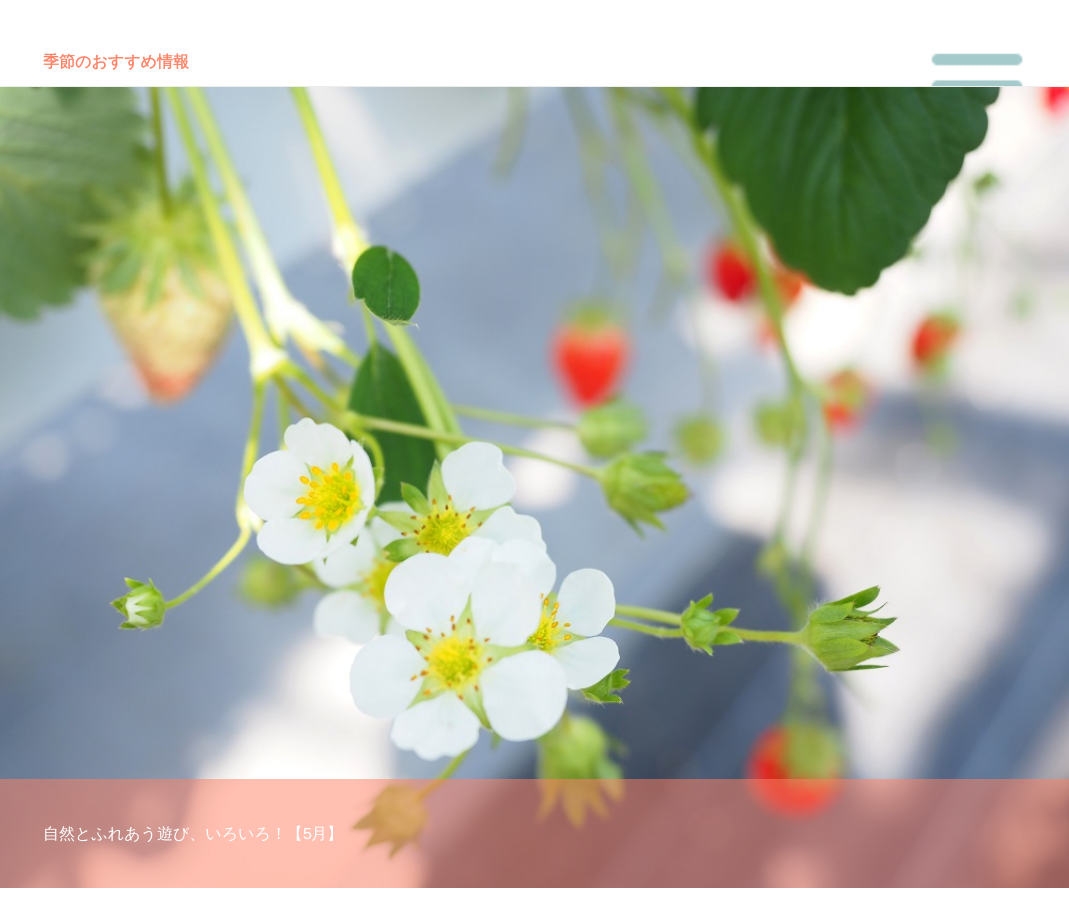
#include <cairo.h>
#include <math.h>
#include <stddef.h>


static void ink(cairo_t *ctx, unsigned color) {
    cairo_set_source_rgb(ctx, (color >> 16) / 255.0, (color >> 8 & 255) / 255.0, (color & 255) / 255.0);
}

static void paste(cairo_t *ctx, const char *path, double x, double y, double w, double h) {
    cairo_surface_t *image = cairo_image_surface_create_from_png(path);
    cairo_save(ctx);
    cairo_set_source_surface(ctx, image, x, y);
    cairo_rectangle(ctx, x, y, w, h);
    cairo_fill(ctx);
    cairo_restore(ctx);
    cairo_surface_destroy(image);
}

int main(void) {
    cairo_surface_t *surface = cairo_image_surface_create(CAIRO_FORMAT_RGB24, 1069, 922);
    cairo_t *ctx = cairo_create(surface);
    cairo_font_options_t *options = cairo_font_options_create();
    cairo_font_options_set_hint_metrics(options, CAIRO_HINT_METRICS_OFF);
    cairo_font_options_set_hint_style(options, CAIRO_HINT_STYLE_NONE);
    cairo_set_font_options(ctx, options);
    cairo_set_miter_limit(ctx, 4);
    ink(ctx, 0xFFFFFF);
    cairo_paint(ctx);
    ink(ctx, 0xEDEDED);
    cairo_rectangle(ctx, 0, 86, 1069, 1);
    cairo_fill(ctx);
    cairo_select_font_face(ctx, "WenQuanYi Zen Hei", CAIRO_FONT_SLANT_NORMAL, CAIRO_FONT_WEIGHT_BOLD);
    cairo_set_font_size(ctx, 16);
    ink(ctx, 0xFF8367);
    cairo_move_to(ctx, 43, 67);
    cairo_show_text(ctx, "季節のおすすめ情報");
    paste(ctx, "media/1.png", 931, 53, 92, 33);
    paste(ctx, "media/2.png", 0, 87, 1069, 801);
    cairo_set_source_rgba(ctx, 1, 0.514, 0.404, 0.5);
    cairo_rectangle(ctx, 0, 779, 1069, 109);
    cairo_fill(ctx);
    cairo_select_font_face(ctx, "WenQuanYi Zen Hei Medium", CAIRO_FONT_SLANT_NORMAL, CAIRO_FONT_WEIGHT_NORMAL);
    ink(ctx, 0xFFFFFF);
    cairo_move_to(ctx, 43, 839);
    cairo_show_text(ctx, "自然とふれあう遊び、いろいろ！【");
    cairo_select_font_face(ctx, "Liberation Sans", CAIRO_FONT_SLANT_NORMAL, CAIRO_FONT_WEIGHT_NORMAL);
    cairo_move_to(ctx, 303, 839);
    cairo_show_text(ctx, "5");
    cairo_select_font_face(ctx, "WenQuanYi Zen Hei Medium", CAIRO_FONT_SLANT_NORMAL, CAIRO_FONT_WEIGHT_NORMAL);
    cairo_move_to(ctx, 311, 839);
    cairo_show_text(ctx, "月】");
    cairo_surface_write_to_png(surface, "image.png");
    cairo_font_options_destroy(options);
    cairo_destroy(ctx);
    cairo_surface_destroy(surface);
    return 0;
}
